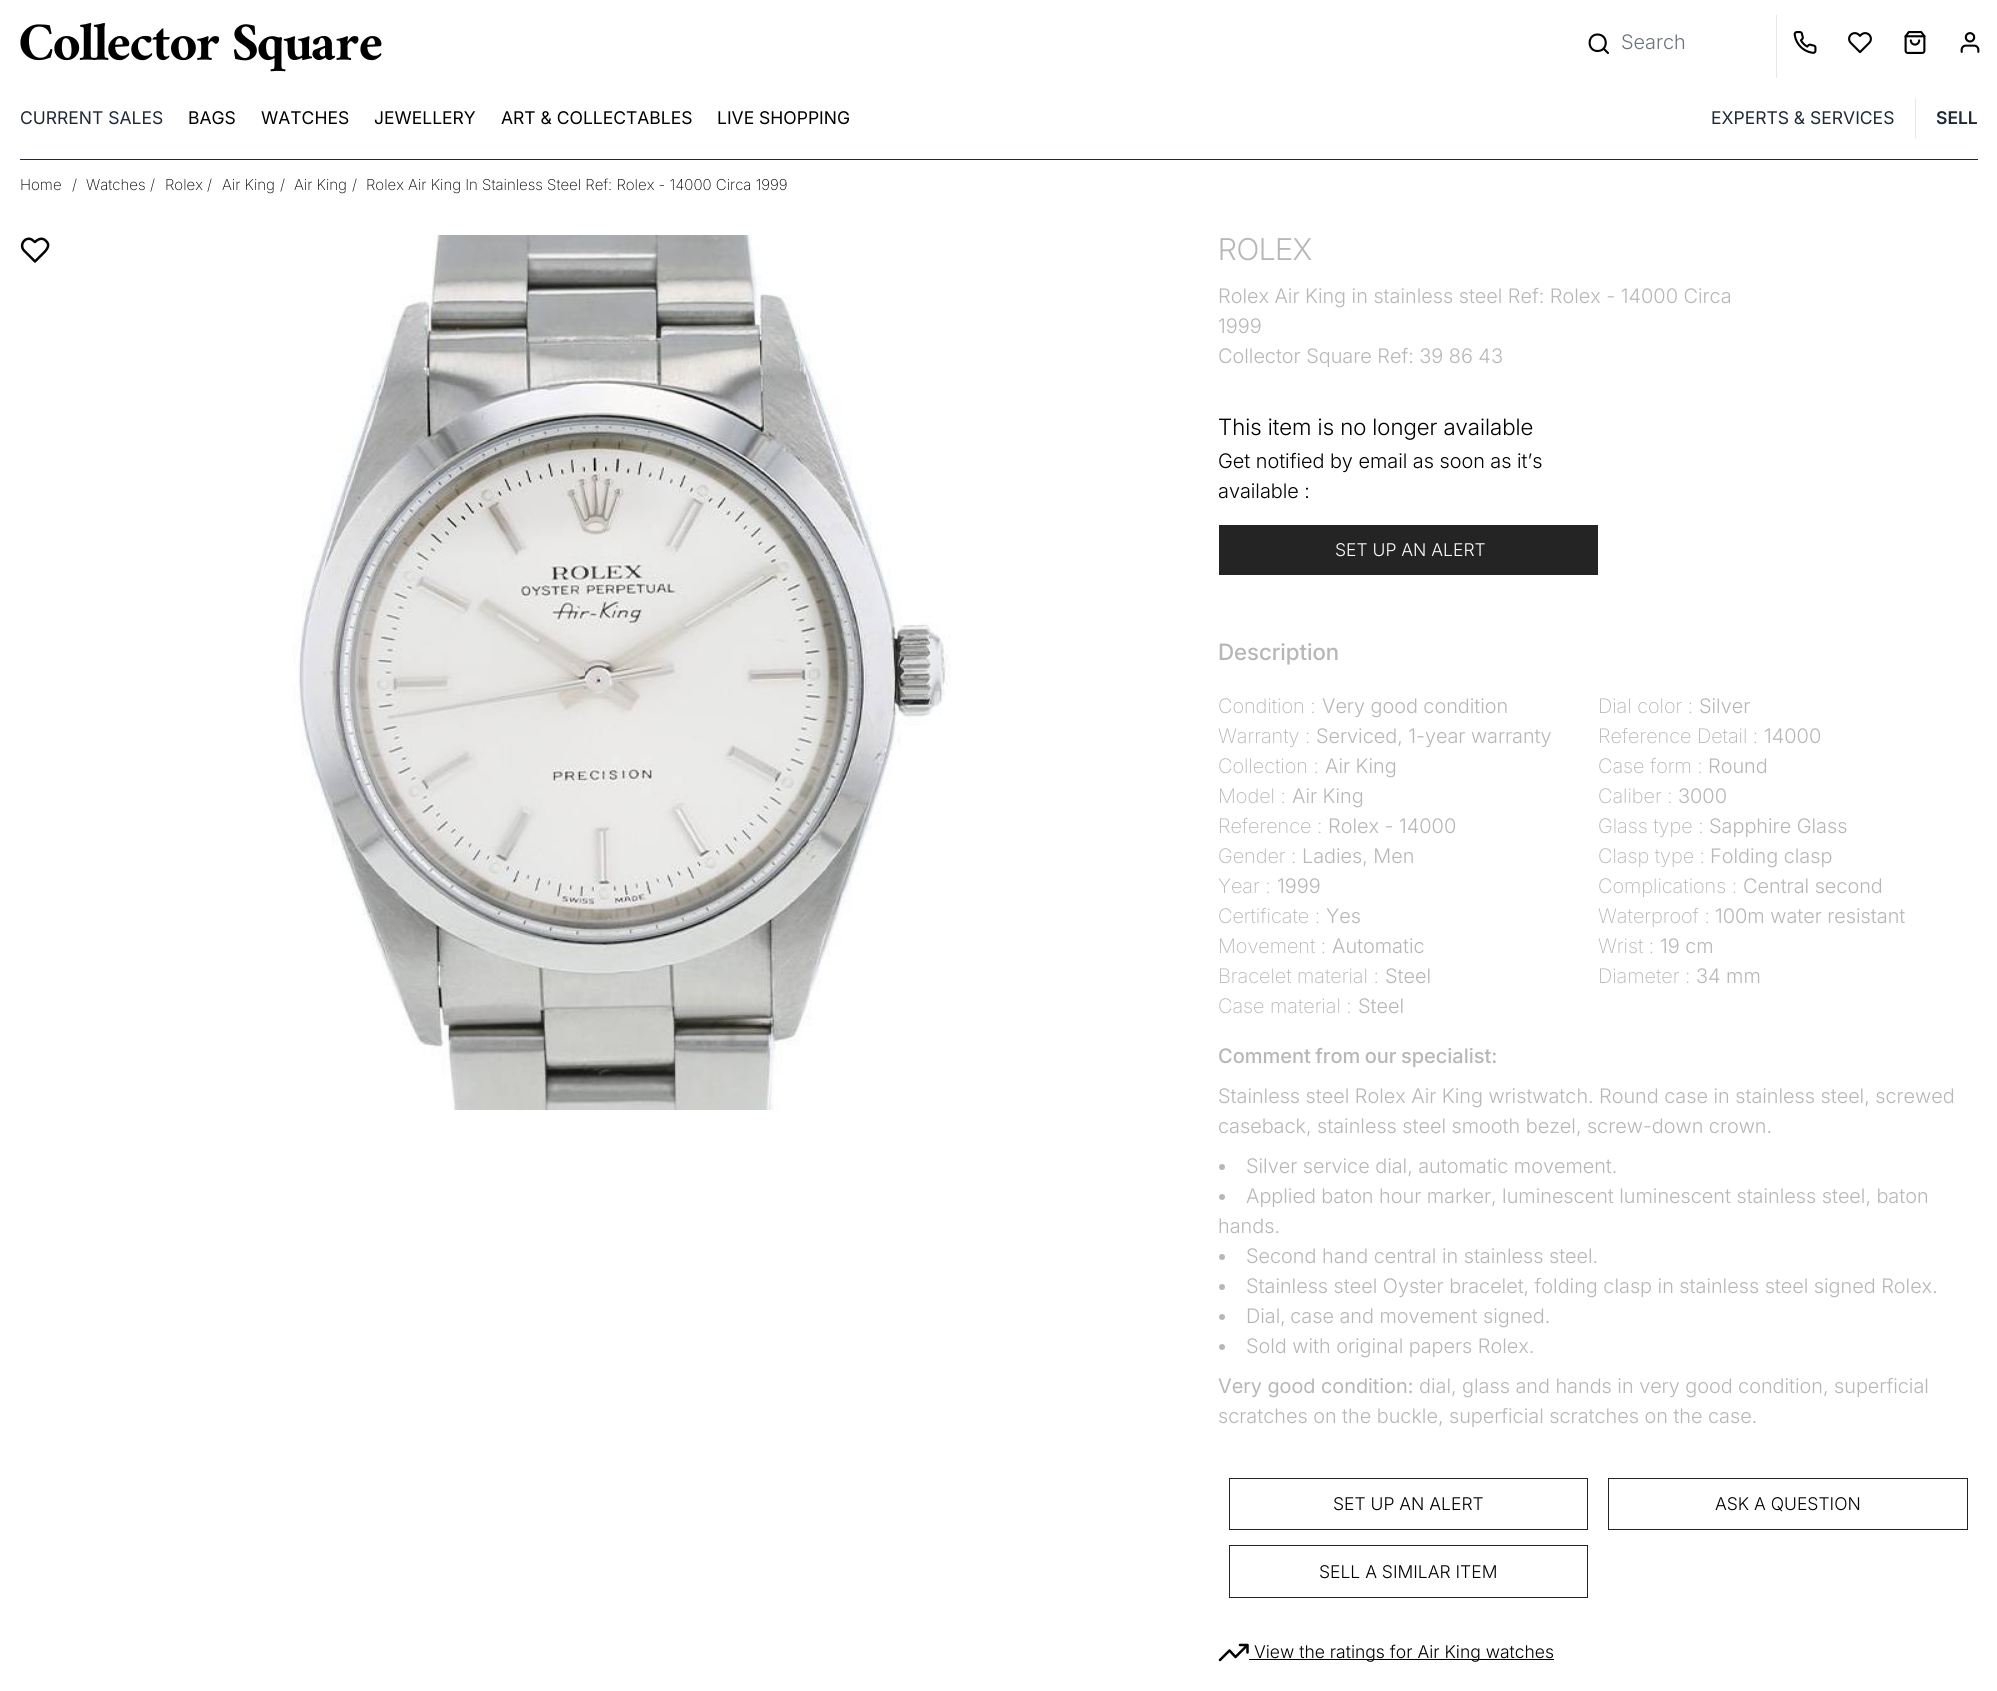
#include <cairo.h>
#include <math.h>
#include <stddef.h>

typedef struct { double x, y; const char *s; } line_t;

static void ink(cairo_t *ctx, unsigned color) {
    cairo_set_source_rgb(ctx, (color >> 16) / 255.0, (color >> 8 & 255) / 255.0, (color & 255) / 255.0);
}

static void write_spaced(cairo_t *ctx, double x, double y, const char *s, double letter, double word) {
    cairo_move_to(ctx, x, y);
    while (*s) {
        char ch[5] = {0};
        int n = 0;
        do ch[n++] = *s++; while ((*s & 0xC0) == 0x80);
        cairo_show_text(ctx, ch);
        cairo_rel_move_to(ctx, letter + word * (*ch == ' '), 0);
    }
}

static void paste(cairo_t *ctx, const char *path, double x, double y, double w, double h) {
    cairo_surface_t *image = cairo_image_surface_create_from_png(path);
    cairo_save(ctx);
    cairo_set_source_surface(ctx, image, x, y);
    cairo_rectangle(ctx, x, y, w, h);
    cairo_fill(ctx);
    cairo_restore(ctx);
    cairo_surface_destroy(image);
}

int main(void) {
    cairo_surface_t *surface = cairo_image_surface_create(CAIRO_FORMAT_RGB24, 1997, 1691);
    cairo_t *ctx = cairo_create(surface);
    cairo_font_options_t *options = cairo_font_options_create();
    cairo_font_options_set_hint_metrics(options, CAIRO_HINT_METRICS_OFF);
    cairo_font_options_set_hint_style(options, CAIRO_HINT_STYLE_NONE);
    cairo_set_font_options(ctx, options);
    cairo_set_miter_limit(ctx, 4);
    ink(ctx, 0xFFFFFF);
    cairo_paint(ctx);
    paste(ctx, "media/1.png", 20, 22, 362, 50);
    cairo_new_path(ctx);
    cairo_move_to(ctx, 1597.5, 51);
    cairo_curve_to(ctx, 1608.5, 51, 1608.5, 34.5, 1597.5, 34.5);
    cairo_curve_to(ctx, 1587, 34.5, 1587, 51, 1597.5, 51);
    cairo_move_to(ctx, 1608, 53);
    cairo_line_to(ctx, 1603.5, 48.5);
    ink(ctx, 0x000000);
    cairo_set_line_width(ctx, 2.1);
    cairo_set_line_cap(ctx, CAIRO_LINE_CAP_ROUND);
    cairo_set_line_join(ctx, CAIRO_LINE_JOIN_ROUND);
    cairo_stroke(ctx);
    cairo_select_font_face(ctx, "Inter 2 Light", CAIRO_FONT_SLANT_NORMAL, CAIRO_FONT_WEIGHT_NORMAL);
    cairo_set_font_size(ctx, 20);
    ink(ctx, 0x6B7280);
    cairo_move_to(ctx, 1621, 49);
    cairo_show_text(ctx, "Search");
    ink(ctx, 0xE5E7EB);
    cairo_rectangle(ctx, 1776, 15, 1, 63);
    cairo_fill(ctx);
    paste(ctx, "media/2.png", 1793, 31, 24, 23);
    paste(ctx, "media/3.png", 1848, 32, 24, 22);
    paste(ctx, "media/4.png", 1904, 31, 22, 23);
    paste(ctx, "media/5.png", 1960, 32, 20, 21);
    cairo_select_font_face(ctx, "Inter 2", CAIRO_FONT_SLANT_NORMAL, CAIRO_FONT_WEIGHT_NORMAL);
    cairo_set_font_size(ctx, 17.5);
    ink(ctx, 0x1F2937);
    cairo_move_to(ctx, 20, 124);
    cairo_show_text(ctx, "CURRENT SALES");
    ink(ctx, 0x000000);
    {
        static const line_t items[] = {
            {188, 124, "BAGS"},
            {261, 124, "WATCHES"},
            {374, 124, "JEWELLERY"},
            {501, 124, "ART & COLLECTABLES"},
            {717, 124, "LIVE SHOPPING"},
        };
        for (size_t i = 0; i < sizeof items / sizeof *items; i++) {
            cairo_move_to(ctx, items[i].x, items[i].y);
            cairo_show_text(ctx, items[i].s);
        }
    }
    ink(ctx, 0x1F2937);
    cairo_move_to(ctx, 1711, 124);
    cairo_show_text(ctx, "EXPERTS & SERVICES");
    ink(ctx, 0xE5E7EB);
    cairo_rectangle(ctx, 1915, 98, 1, 40);
    cairo_fill(ctx);
    cairo_select_font_face(ctx, "Inter SemiBold", CAIRO_FONT_SLANT_NORMAL, CAIRO_FONT_WEIGHT_NORMAL);
    ink(ctx, 0x1F2937);
    cairo_move_to(ctx, 1936, 124);
    cairo_show_text(ctx, "SELL");
    cairo_rectangle(ctx, 20, 159, 1958, 1);
    cairo_fill(ctx);
    cairo_select_font_face(ctx, "Inter ExtraLight", CAIRO_FONT_SLANT_NORMAL, CAIRO_FONT_WEIGHT_NORMAL);
    cairo_set_font_size(ctx, 15);
    ink(ctx, 0x000000);
    {
        static const line_t items[] = {
            {20, 190, "Home"},
            {72, 190, "/"},
            {86, 190, "Watches"},
            {150, 190, "/"},
            {165, 190, "Rolex"},
            {207, 190, "/"},
            {222, 190, "Air King"},
            {280, 190, "/"},
            {294, 190, "Air King"},
            {352, 190, "/"},
            {366, 190, "Rolex Air King In Stainless Steel Ref: Rolex - 14000 Circa 1999"},
        };
        for (size_t i = 0; i < sizeof items / sizeof *items; i++) {
            cairo_move_to(ctx, items[i].x, items[i].y);
            cairo_show_text(ctx, items[i].s);
        }
    }
    cairo_new_path(ctx);
    cairo_move_to(ctx, 46, 241);
    cairo_curve_to(ctx, 42.5, 237, 38, 239, 35, 242);
    cairo_line_to(ctx, 33.5, 241);
    cairo_curve_to(ctx, 31, 238, 26.5, 238, 24, 241);
    cairo_curve_to(ctx, 21.5, 243.5, 21.5, 248, 24, 250.5);
    cairo_line_to(ctx, 35, 261.5);
    cairo_line_to(ctx, 41.5, 255);
    cairo_curve_to(ctx, 45, 251.5, 51.5, 246, 46, 241);
    cairo_set_line_width(ctx, 2.5);
    cairo_stroke(ctx);
    paste(ctx, "media/6.png", 293, 235, 658, 875);
    cairo_select_font_face(ctx, "Inter Light", CAIRO_FONT_SLANT_NORMAL, CAIRO_FONT_WEIGHT_NORMAL);
    cairo_set_font_size(ctx, 30);
    ink(ctx, 0xB7B7B7);
    cairo_move_to(ctx, 1218, 260);
    cairo_show_text(ctx, "ROLEX");
    cairo_select_font_face(ctx, "Inter 2 Light", CAIRO_FONT_SLANT_NORMAL, CAIRO_FONT_WEIGHT_NORMAL);
    cairo_set_font_size(ctx, 20);
    {
        static const line_t items[] = {
            {1218, 303, "Rolex Air King in stainless steel Ref: Rolex - 14000 Circa"},
            {1218, 333, "1999"},
            {1218, 363, "Collector Square Ref: 39 86 43"},
        };
        for (size_t i = 0; i < sizeof items / sizeof *items; i++) {
            cairo_move_to(ctx, items[i].x, items[i].y);
            cairo_show_text(ctx, items[i].s);
        }
    }
    cairo_select_font_face(ctx, "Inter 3 Light", CAIRO_FONT_SLANT_NORMAL, CAIRO_FONT_WEIGHT_NORMAL);
    cairo_set_font_size(ctx, 22.5);
    ink(ctx, 0x000000);
    cairo_move_to(ctx, 1218, 435);
    cairo_show_text(ctx, "This item is no longer available");
    cairo_select_font_face(ctx, "Inter 2 Light", CAIRO_FONT_SLANT_NORMAL, CAIRO_FONT_WEIGHT_NORMAL);
    cairo_set_font_size(ctx, 20);
    cairo_move_to(ctx, 1218, 468);
    cairo_show_text(ctx, "Get notified by email as soon as it’s");
    cairo_move_to(ctx, 1218, 498);
    cairo_show_text(ctx, "available :");
    ink(ctx, 0x242424);
    cairo_rectangle(ctx, 1219, 525, 379, 50);
    cairo_fill(ctx);
    cairo_select_font_face(ctx, "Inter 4 Light", CAIRO_FONT_SLANT_NORMAL, CAIRO_FONT_WEIGHT_NORMAL);
    cairo_set_font_size(ctx, 17.5);
    ink(ctx, 0xFFFFFF);
    cairo_move_to(ctx, 1335, 556);
    cairo_show_text(ctx, "SET UP AN ALERT");
    cairo_select_font_face(ctx, "Inter Medium", CAIRO_FONT_SLANT_NORMAL, CAIRO_FONT_WEIGHT_NORMAL);
    cairo_set_font_size(ctx, 22.5);
    ink(ctx, 0xB7B7B7);
    cairo_move_to(ctx, 1218, 660);
    cairo_show_text(ctx, "Description");
    cairo_select_font_face(ctx, "Inter 2 ExtraLight", CAIRO_FONT_SLANT_NORMAL, CAIRO_FONT_WEIGHT_NORMAL);
    cairo_set_font_size(ctx, 20);
    cairo_move_to(ctx, 1218, 713);
    cairo_show_text(ctx, "Condition :");
    cairo_select_font_face(ctx, "Inter 2 Light", CAIRO_FONT_SLANT_NORMAL, CAIRO_FONT_WEIGHT_NORMAL);
    cairo_move_to(ctx, 1322, 713);
    cairo_show_text(ctx, "Very good condition");
    cairo_select_font_face(ctx, "Inter 2 ExtraLight", CAIRO_FONT_SLANT_NORMAL, CAIRO_FONT_WEIGHT_NORMAL);
    cairo_move_to(ctx, 1218, 743);
    cairo_show_text(ctx, "Warranty :");
    cairo_select_font_face(ctx, "Inter 2 Light", CAIRO_FONT_SLANT_NORMAL, CAIRO_FONT_WEIGHT_NORMAL);
    cairo_move_to(ctx, 1316, 743);
    cairo_show_text(ctx, "Serviced, 1-year warranty");
    cairo_select_font_face(ctx, "Inter 2 ExtraLight", CAIRO_FONT_SLANT_NORMAL, CAIRO_FONT_WEIGHT_NORMAL);
    cairo_move_to(ctx, 1218, 773);
    cairo_show_text(ctx, "Collection :");
    cairo_select_font_face(ctx, "Inter 2 Light", CAIRO_FONT_SLANT_NORMAL, CAIRO_FONT_WEIGHT_NORMAL);
    cairo_move_to(ctx, 1325, 773);
    cairo_show_text(ctx, "Air King");
    cairo_select_font_face(ctx, "Inter 2 ExtraLight", CAIRO_FONT_SLANT_NORMAL, CAIRO_FONT_WEIGHT_NORMAL);
    cairo_move_to(ctx, 1218, 803);
    cairo_show_text(ctx, "Model :");
    cairo_select_font_face(ctx, "Inter 2 Light", CAIRO_FONT_SLANT_NORMAL, CAIRO_FONT_WEIGHT_NORMAL);
    cairo_move_to(ctx, 1292, 803);
    cairo_show_text(ctx, "Air King");
    cairo_select_font_face(ctx, "Inter 2 ExtraLight", CAIRO_FONT_SLANT_NORMAL, CAIRO_FONT_WEIGHT_NORMAL);
    cairo_move_to(ctx, 1218, 833);
    cairo_show_text(ctx, "Reference :");
    cairo_select_font_face(ctx, "Inter 2 Light", CAIRO_FONT_SLANT_NORMAL, CAIRO_FONT_WEIGHT_NORMAL);
    cairo_move_to(ctx, 1328, 833);
    cairo_show_text(ctx, "Rolex - 14000");
    cairo_select_font_face(ctx, "Inter 2 ExtraLight", CAIRO_FONT_SLANT_NORMAL, CAIRO_FONT_WEIGHT_NORMAL);
    cairo_move_to(ctx, 1218, 863);
    cairo_show_text(ctx, "Gender :");
    cairo_select_font_face(ctx, "Inter 2 Light", CAIRO_FONT_SLANT_NORMAL, CAIRO_FONT_WEIGHT_NORMAL);
    cairo_move_to(ctx, 1302, 863);
    cairo_show_text(ctx, "Ladies, Men");
    cairo_select_font_face(ctx, "Inter 2 ExtraLight", CAIRO_FONT_SLANT_NORMAL, CAIRO_FONT_WEIGHT_NORMAL);
    cairo_move_to(ctx, 1218, 893);
    cairo_show_text(ctx, "Year :");
    cairo_select_font_face(ctx, "Inter 2 Light", CAIRO_FONT_SLANT_NORMAL, CAIRO_FONT_WEIGHT_NORMAL);
    cairo_move_to(ctx, 1277, 893);
    cairo_show_text(ctx, "1999");
    cairo_select_font_face(ctx, "Inter 2 ExtraLight", CAIRO_FONT_SLANT_NORMAL, CAIRO_FONT_WEIGHT_NORMAL);
    cairo_move_to(ctx, 1218, 923);
    cairo_show_text(ctx, "Certificate :");
    cairo_select_font_face(ctx, "Inter 2 Light", CAIRO_FONT_SLANT_NORMAL, CAIRO_FONT_WEIGHT_NORMAL);
    cairo_move_to(ctx, 1326, 923);
    cairo_show_text(ctx, "Yes");
    cairo_select_font_face(ctx, "Inter 2 ExtraLight", CAIRO_FONT_SLANT_NORMAL, CAIRO_FONT_WEIGHT_NORMAL);
    cairo_move_to(ctx, 1218, 953);
    cairo_show_text(ctx, "Movement :");
    cairo_select_font_face(ctx, "Inter 2 Light", CAIRO_FONT_SLANT_NORMAL, CAIRO_FONT_WEIGHT_NORMAL);
    cairo_move_to(ctx, 1332, 953);
    cairo_show_text(ctx, "Automatic");
    cairo_select_font_face(ctx, "Inter 2 ExtraLight", CAIRO_FONT_SLANT_NORMAL, CAIRO_FONT_WEIGHT_NORMAL);
    cairo_move_to(ctx, 1218, 983);
    cairo_show_text(ctx, "Bracelet material :");
    cairo_select_font_face(ctx, "Inter 2 Light", CAIRO_FONT_SLANT_NORMAL, CAIRO_FONT_WEIGHT_NORMAL);
    cairo_move_to(ctx, 1385, 983);
    cairo_show_text(ctx, "Steel");
    cairo_select_font_face(ctx, "Inter 2 ExtraLight", CAIRO_FONT_SLANT_NORMAL, CAIRO_FONT_WEIGHT_NORMAL);
    cairo_move_to(ctx, 1218, 1013);
    cairo_show_text(ctx, "Case material :");
    cairo_select_font_face(ctx, "Inter 2 Light", CAIRO_FONT_SLANT_NORMAL, CAIRO_FONT_WEIGHT_NORMAL);
    cairo_move_to(ctx, 1358, 1013);
    cairo_show_text(ctx, "Steel");
    cairo_select_font_face(ctx, "Inter 2 ExtraLight", CAIRO_FONT_SLANT_NORMAL, CAIRO_FONT_WEIGHT_NORMAL);
    cairo_move_to(ctx, 1598, 713);
    cairo_show_text(ctx, "Dial color :");
    cairo_select_font_face(ctx, "Inter 2 Light", CAIRO_FONT_SLANT_NORMAL, CAIRO_FONT_WEIGHT_NORMAL);
    cairo_move_to(ctx, 1699, 713);
    cairo_show_text(ctx, "Silver");
    cairo_select_font_face(ctx, "Inter 2 ExtraLight", CAIRO_FONT_SLANT_NORMAL, CAIRO_FONT_WEIGHT_NORMAL);
    cairo_move_to(ctx, 1598, 743);
    cairo_show_text(ctx, "Reference Detail :");
    cairo_select_font_face(ctx, "Inter 2 Light", CAIRO_FONT_SLANT_NORMAL, CAIRO_FONT_WEIGHT_NORMAL);
    cairo_move_to(ctx, 1764, 743);
    cairo_show_text(ctx, "14000");
    cairo_select_font_face(ctx, "Inter 2 ExtraLight", CAIRO_FONT_SLANT_NORMAL, CAIRO_FONT_WEIGHT_NORMAL);
    cairo_move_to(ctx, 1598, 773);
    cairo_show_text(ctx, "Case form :");
    cairo_select_font_face(ctx, "Inter 2 Light", CAIRO_FONT_SLANT_NORMAL, CAIRO_FONT_WEIGHT_NORMAL);
    cairo_move_to(ctx, 1708, 773);
    cairo_show_text(ctx, "Round");
    cairo_select_font_face(ctx, "Inter 2 ExtraLight", CAIRO_FONT_SLANT_NORMAL, CAIRO_FONT_WEIGHT_NORMAL);
    cairo_move_to(ctx, 1598, 803);
    cairo_show_text(ctx, "Caliber :");
    cairo_select_font_face(ctx, "Inter 2 Light", CAIRO_FONT_SLANT_NORMAL, CAIRO_FONT_WEIGHT_NORMAL);
    cairo_move_to(ctx, 1678, 803);
    cairo_show_text(ctx, "3000");
    cairo_select_font_face(ctx, "Inter 2 ExtraLight", CAIRO_FONT_SLANT_NORMAL, CAIRO_FONT_WEIGHT_NORMAL);
    cairo_move_to(ctx, 1598, 833);
    cairo_show_text(ctx, "Glass type :");
    cairo_select_font_face(ctx, "Inter 2 Light", CAIRO_FONT_SLANT_NORMAL, CAIRO_FONT_WEIGHT_NORMAL);
    cairo_move_to(ctx, 1709, 833);
    cairo_show_text(ctx, "Sapphire Glass");
    cairo_select_font_face(ctx, "Inter 2 ExtraLight", CAIRO_FONT_SLANT_NORMAL, CAIRO_FONT_WEIGHT_NORMAL);
    cairo_move_to(ctx, 1598, 863);
    cairo_show_text(ctx, "Clasp type :");
    cairo_select_font_face(ctx, "Inter 2 Light", CAIRO_FONT_SLANT_NORMAL, CAIRO_FONT_WEIGHT_NORMAL);
    cairo_move_to(ctx, 1710, 863);
    cairo_show_text(ctx, "Folding clasp");
    cairo_select_font_face(ctx, "Inter 2 ExtraLight", CAIRO_FONT_SLANT_NORMAL, CAIRO_FONT_WEIGHT_NORMAL);
    cairo_move_to(ctx, 1598, 893);
    cairo_show_text(ctx, "Complications :");
    cairo_select_font_face(ctx, "Inter 2 Light", CAIRO_FONT_SLANT_NORMAL, CAIRO_FONT_WEIGHT_NORMAL);
    cairo_move_to(ctx, 1743, 893);
    cairo_show_text(ctx, "Central second");
    cairo_select_font_face(ctx, "Inter 2 ExtraLight", CAIRO_FONT_SLANT_NORMAL, CAIRO_FONT_WEIGHT_NORMAL);
    cairo_move_to(ctx, 1598, 923);
    cairo_show_text(ctx, "Waterproof :");
    cairo_select_font_face(ctx, "Inter 2 Light", CAIRO_FONT_SLANT_NORMAL, CAIRO_FONT_WEIGHT_NORMAL);
    cairo_move_to(ctx, 1715, 923);
    cairo_show_text(ctx, "100m water resistant");
    cairo_select_font_face(ctx, "Inter 2 ExtraLight", CAIRO_FONT_SLANT_NORMAL, CAIRO_FONT_WEIGHT_NORMAL);
    cairo_move_to(ctx, 1598, 953);
    cairo_show_text(ctx, "Wrist :");
    cairo_select_font_face(ctx, "Inter 2 Light", CAIRO_FONT_SLANT_NORMAL, CAIRO_FONT_WEIGHT_NORMAL);
    cairo_move_to(ctx, 1660, 953);
    cairo_show_text(ctx, "19 cm");
    cairo_select_font_face(ctx, "Inter 2 ExtraLight", CAIRO_FONT_SLANT_NORMAL, CAIRO_FONT_WEIGHT_NORMAL);
    cairo_move_to(ctx, 1598, 983);
    cairo_show_text(ctx, "Diameter :");
    cairo_select_font_face(ctx, "Inter 2 Light", CAIRO_FONT_SLANT_NORMAL, CAIRO_FONT_WEIGHT_NORMAL);
    cairo_move_to(ctx, 1696, 983);
    cairo_show_text(ctx, "34 mm");
    cairo_select_font_face(ctx, "Inter 2 Medium", CAIRO_FONT_SLANT_NORMAL, CAIRO_FONT_WEIGHT_NORMAL);
    write_spaced(ctx, 1218, 1063, "Comment from our specialist:", 0, -1);
    cairo_select_font_face(ctx, "Inter 2 Light", CAIRO_FONT_SLANT_NORMAL, CAIRO_FONT_WEIGHT_NORMAL);
    cairo_move_to(ctx, 1218, 1103);
    cairo_show_text(ctx, "Stainless steel Rolex Air King wristwatch. Round case in stainless steel, screwed");
    cairo_move_to(ctx, 1218, 1133);
    cairo_show_text(ctx, "caseback, stainless steel smooth bezel, screw-down crown.");
    cairo_new_path(ctx);
    cairo_arc(ctx, 1222, 1167, 3, 0, 2 * M_PI);
    cairo_fill(ctx);
    cairo_move_to(ctx, 1246, 1173);
    cairo_show_text(ctx, "Silver service dial, automatic movement.");
    cairo_new_path(ctx);
    cairo_arc(ctx, 1222, 1197, 3, 0, 2 * M_PI);
    cairo_fill(ctx);
    cairo_move_to(ctx, 1246, 1203);
    cairo_show_text(ctx, "Applied baton hour marker, luminescent luminescent stainless steel, baton");
    cairo_move_to(ctx, 1218, 1233);
    cairo_show_text(ctx, "hands.");
    cairo_new_path(ctx);
    cairo_arc(ctx, 1222, 1257, 3, 0, 2 * M_PI);
    cairo_fill(ctx);
    cairo_move_to(ctx, 1246, 1263);
    cairo_show_text(ctx, "Second hand central in stainless steel.");
    cairo_new_path(ctx);
    cairo_arc(ctx, 1222, 1287, 3, 0, 2 * M_PI);
    cairo_fill(ctx);
    cairo_move_to(ctx, 1246, 1293);
    cairo_show_text(ctx, "Stainless steel Oyster bracelet, folding clasp in stainless steel signed Rolex.");
    cairo_new_path(ctx);
    cairo_arc(ctx, 1222, 1317, 3, 0, 2 * M_PI);
    cairo_fill(ctx);
    cairo_move_to(ctx, 1246, 1323);
    cairo_show_text(ctx, "Dial‚ case and movement signed.");
    cairo_new_path(ctx);
    cairo_arc(ctx, 1222, 1347, 3, 0, 2 * M_PI);
    cairo_fill(ctx);
    cairo_move_to(ctx, 1246, 1353);
    cairo_show_text(ctx, "Sold with original papers Rolex.");
    cairo_select_font_face(ctx, "Inter", CAIRO_FONT_SLANT_NORMAL, CAIRO_FONT_WEIGHT_NORMAL);
    cairo_move_to(ctx, 1218, 1393);
    cairo_show_text(ctx, "Very good condition:");
    cairo_select_font_face(ctx, "Inter 2 Light", CAIRO_FONT_SLANT_NORMAL, CAIRO_FONT_WEIGHT_NORMAL);
    cairo_move_to(ctx, 1419, 1393);
    cairo_show_text(ctx, "dial, glass and hands in very good condition, superficial");
    cairo_move_to(ctx, 1218, 1423);
    cairo_show_text(ctx, "scratches on the buckle, superficial scratches on the case.");
    cairo_rectangle(ctx, 1229.5, 1478.5, 358, 51);
    ink(ctx, 0x242424);
    cairo_set_line_width(ctx, 1);
    cairo_set_line_cap(ctx, CAIRO_LINE_CAP_BUTT);
    cairo_set_line_join(ctx, CAIRO_LINE_JOIN_MITER);
    cairo_stroke(ctx);
    cairo_select_font_face(ctx, "Inter 4 Light", CAIRO_FONT_SLANT_NORMAL, CAIRO_FONT_WEIGHT_NORMAL);
    cairo_set_font_size(ctx, 17.5);
    ink(ctx, 0x000000);
    cairo_move_to(ctx, 1333, 1510);
    cairo_show_text(ctx, "SET UP AN ALERT");
    cairo_rectangle(ctx, 1608.5, 1478.5, 359, 51);
    ink(ctx, 0x242424);
    cairo_stroke(ctx);
    ink(ctx, 0x000000);
    cairo_move_to(ctx, 1715, 1510);
    cairo_show_text(ctx, "ASK A QUESTION");
    cairo_rectangle(ctx, 1229.5, 1545.5, 358, 52);
    ink(ctx, 0x242424);
    cairo_stroke(ctx);
    ink(ctx, 0x000000);
    cairo_move_to(ctx, 1319, 1578);
    cairo_show_text(ctx, "SELL A SIMILAR ITEM");
    cairo_new_path(ctx);
    cairo_move_to(ctx, 1247.5, 1645);
    cairo_line_to(ctx, 1235.5, 1657);
    cairo_line_to(ctx, 1229.5, 1650.5);
    cairo_line_to(ctx, 1220, 1660);
    cairo_move_to(ctx, 1240, 1645);
    cairo_line_to(ctx, 1247.5, 1645);
    cairo_line_to(ctx, 1247.5, 1652.5);
    cairo_set_line_width(ctx, 2.5);
    cairo_set_line_cap(ctx, CAIRO_LINE_CAP_ROUND);
    cairo_set_line_join(ctx, CAIRO_LINE_JOIN_ROUND);
    cairo_stroke(ctx);
    cairo_rectangle(ctx, 1249, 1659, 305, 1);
    cairo_fill(ctx);
    cairo_move_to(ctx, 1254, 1658);
    cairo_show_text(ctx, "View the ratings for Air King watches");
    cairo_surface_write_to_png(surface, "image.png");
    cairo_font_options_destroy(options);
    cairo_destroy(ctx);
    cairo_surface_destroy(surface);
    return 0;
}
